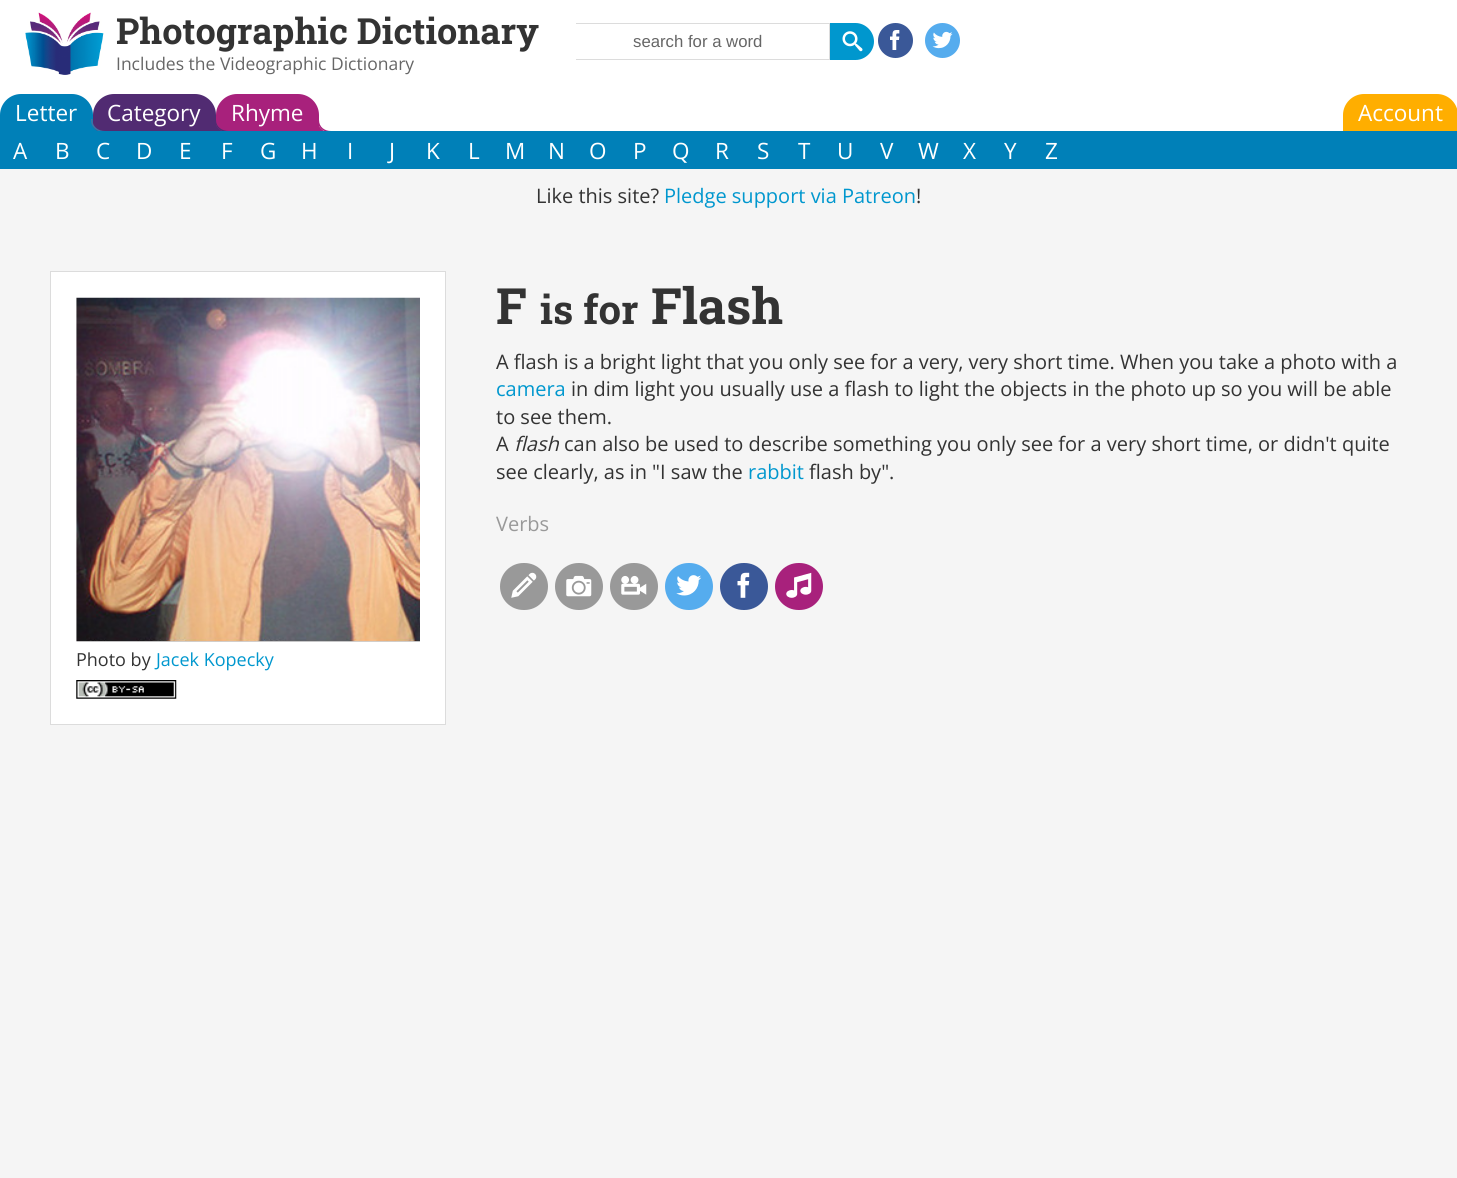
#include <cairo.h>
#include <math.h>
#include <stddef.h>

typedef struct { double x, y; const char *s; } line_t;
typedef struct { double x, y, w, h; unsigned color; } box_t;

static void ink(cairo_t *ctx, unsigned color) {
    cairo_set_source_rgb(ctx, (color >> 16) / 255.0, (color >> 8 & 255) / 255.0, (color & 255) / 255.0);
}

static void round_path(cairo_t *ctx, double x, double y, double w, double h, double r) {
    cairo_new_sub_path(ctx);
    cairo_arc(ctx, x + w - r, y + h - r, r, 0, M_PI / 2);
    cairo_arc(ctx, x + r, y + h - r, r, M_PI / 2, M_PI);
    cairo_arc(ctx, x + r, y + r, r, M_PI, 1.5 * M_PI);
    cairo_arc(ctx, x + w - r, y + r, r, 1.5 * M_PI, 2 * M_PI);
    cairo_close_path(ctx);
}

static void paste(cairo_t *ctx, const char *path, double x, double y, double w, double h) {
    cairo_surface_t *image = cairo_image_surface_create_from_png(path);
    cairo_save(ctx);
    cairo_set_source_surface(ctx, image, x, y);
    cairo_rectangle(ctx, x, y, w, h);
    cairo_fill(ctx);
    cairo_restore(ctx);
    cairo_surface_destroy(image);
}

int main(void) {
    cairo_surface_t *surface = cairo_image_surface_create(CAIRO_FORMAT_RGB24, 1457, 1178);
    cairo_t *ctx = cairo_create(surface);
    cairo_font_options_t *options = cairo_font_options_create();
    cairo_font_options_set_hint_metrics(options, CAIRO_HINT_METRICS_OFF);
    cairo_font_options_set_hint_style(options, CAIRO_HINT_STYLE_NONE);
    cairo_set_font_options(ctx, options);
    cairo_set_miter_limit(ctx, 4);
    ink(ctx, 0xF5F5F5);
    cairo_paint(ctx);
    ink(ctx, 0xFFFFFF);
    cairo_rectangle(ctx, 0, 0, 1457, 131);
    cairo_fill(ctx);
    paste(ctx, "media/1.png", 25, 12, 79, 63);
    cairo_select_font_face(ctx, "Roboto Slab", CAIRO_FONT_SLANT_NORMAL, CAIRO_FONT_WEIGHT_BOLD);
    cairo_set_font_size(ctx, 36);
    ink(ctx, 0x333333);
    cairo_move_to(ctx, 116, 44);
    cairo_show_text(ctx, "Photographic Dictionary");
    cairo_select_font_face(ctx, "Open Sans", CAIRO_FONT_SLANT_NORMAL, CAIRO_FONT_WEIGHT_NORMAL);
    cairo_set_font_size(ctx, 17.5);
    ink(ctx, 0x666666);
    cairo_move_to(ctx, 116, 70);
    cairo_show_text(ctx, "Includes the Videographic Dictionary");
    {
        static const box_t items[] = {
            {576, 23, 254, 1, 0xDCDCDC},
            {829, 23, 1, 37, 0xDCDCDC},
            {576, 59, 254, 1, 0xDCDCDC},
        };
        for (size_t i = 0; i < sizeof items / sizeof *items; i++) {
            ink(ctx, items[i].color);
            cairo_rectangle(ctx, items[i].x, items[i].y, items[i].w, items[i].h);
            cairo_fill(ctx);
        }
    }
    cairo_select_font_face(ctx, "Liberation Sans", CAIRO_FONT_SLANT_NORMAL, CAIRO_FONT_WEIGHT_NORMAL);
    cairo_set_font_size(ctx, 16.75);
    ink(ctx, 0x666666);
    cairo_move_to(ctx, 633, 47);
    cairo_show_text(ctx, "search for a word");
    ink(ctx, 0x0097CE);
    cairo_new_path(ctx);
    cairo_move_to(ctx, 830, 23);
    cairo_line_to(ctx, 855.5, 23);
    cairo_curve_to(ctx, 865.5, 23, 874, 31.5, 874, 41.5);
    cairo_curve_to(ctx, 874, 51.5, 865.5, 60, 855.5, 60);
    cairo_line_to(ctx, 830, 60);
    cairo_close_path(ctx);
    cairo_fill(ctx);
    paste(ctx, "media/2.png", 842, 31, 21, 21);
    ink(ctx, 0x3A5898);
    cairo_arc(ctx, 895.5, 40.5, 17.5, 0, 2 * M_PI);
    cairo_fill(ctx);
    paste(ctx, "media/3.png", 890, 30, 10, 20);
    ink(ctx, 0x55ACEE);
    cairo_arc(ctx, 942.5, 40.5, 17.5, 0, 2 * M_PI);
    cairo_fill(ctx);
    paste(ctx, "media/4.png", 932, 31, 21, 18);
    ink(ctx, 0x0080B8);
    cairo_new_path(ctx);
    cairo_move_to(ctx, 21, 94);
    cairo_line_to(ctx, 72, 94);
    cairo_curve_to(ctx, 83.5, 94, 93, 103.5, 93, 115);
    cairo_line_to(ctx, 93, 131);
    cairo_line_to(ctx, 0, 131);
    cairo_line_to(ctx, 0, 115);
    cairo_curve_to(ctx, 0, 103.5, 9.5, 94, 21, 94);
    cairo_close_path(ctx);
    cairo_fill(ctx);
    cairo_select_font_face(ctx, "Open Sans", CAIRO_FONT_SLANT_NORMAL, CAIRO_FONT_WEIGHT_NORMAL);
    cairo_set_font_size(ctx, 22.5);
    ink(ctx, 0xFFFFFF);
    cairo_move_to(ctx, 15, 121);
    cairo_show_text(ctx, "Letter");
    ink(ctx, 0x512B72);
    cairo_new_path(ctx);
    cairo_move_to(ctx, 114, 94);
    cairo_line_to(ctx, 195, 94);
    cairo_curve_to(ctx, 206.5, 94, 216, 103.5, 216, 115);
    cairo_line_to(ctx, 216, 131);
    cairo_line_to(ctx, 93, 131);
    cairo_line_to(ctx, 93, 115);
    cairo_curve_to(ctx, 93, 103.5, 102.5, 94, 114, 94);
    cairo_close_path(ctx);
    cairo_fill(ctx);
    ink(ctx, 0x0080B8);
    cairo_new_path(ctx);
    cairo_move_to(ctx, 85, 125);
    cairo_curve_to(ctx, 85, 133.5, 90.5, 139, 99, 139);
    cairo_line_to(ctx, 99, 131.5);
    cairo_curve_to(ctx, 96, 130.5, 93.5, 128, 92.5, 125);
    cairo_close_path(ctx);
    cairo_fill(ctx);
    ink(ctx, 0x3E73A4);
    cairo_set_fill_rule(ctx, CAIRO_FILL_RULE_EVEN_ODD);
    cairo_new_path(ctx);
    cairo_move_to(ctx, 91, 119);
    cairo_line_to(ctx, 105, 119);
    cairo_line_to(ctx, 105, 132.5);
    cairo_curve_to(ctx, 97.5, 132.5, 91, 128, 91, 120);
    cairo_close_path(ctx);
    cairo_move_to(ctx, 92.5, 119);
    cairo_line_to(ctx, 105, 119);
    cairo_line_to(ctx, 105, 131);
    cairo_curve_to(ctx, 98.5, 131, 92.5, 127, 92.5, 120);
    cairo_close_path(ctx);
    cairo_fill(ctx);
    ink(ctx, 0xFFFFFF);
    cairo_move_to(ctx, 107, 121);
    cairo_show_text(ctx, "Category");
    ink(ctx, 0xA8217C);
    cairo_new_path(ctx);
    cairo_move_to(ctx, 237, 94);
    cairo_line_to(ctx, 298, 94);
    cairo_curve_to(ctx, 309.5, 94, 319, 103.5, 319, 115);
    cairo_line_to(ctx, 319, 131);
    cairo_line_to(ctx, 216, 131);
    cairo_line_to(ctx, 216, 115);
    cairo_curve_to(ctx, 216, 103.5, 225.5, 94, 237, 94);
    cairo_close_path(ctx);
    cairo_fill(ctx);
    ink(ctx, 0x512B72);
    cairo_set_fill_rule(ctx, CAIRO_FILL_RULE_WINDING);
    cairo_new_path(ctx);
    cairo_move_to(ctx, 209, 125);
    cairo_curve_to(ctx, 209, 133.5, 214.5, 139, 223, 139);
    cairo_line_to(ctx, 223, 131.5);
    cairo_curve_to(ctx, 220, 130.5, 217.5, 128, 216, 125);
    cairo_close_path(ctx);
    cairo_fill(ctx);
    cairo_set_fill_rule(ctx, CAIRO_FILL_RULE_EVEN_ODD);
    cairo_new_path(ctx);
    cairo_move_to(ctx, 215, 119);
    cairo_line_to(ctx, 229, 119);
    cairo_line_to(ctx, 229, 132.5);
    cairo_curve_to(ctx, 221.5, 132.5, 215, 128, 215, 120);
    cairo_close_path(ctx);
    cairo_move_to(ctx, 216, 119);
    cairo_line_to(ctx, 229, 119);
    cairo_line_to(ctx, 229, 131);
    cairo_curve_to(ctx, 222, 131, 216, 127, 216, 120);
    cairo_close_path(ctx);
    cairo_fill(ctx);
    ink(ctx, 0xFFFFFF);
    cairo_move_to(ctx, 231, 121);
    cairo_show_text(ctx, "Rhyme");
    ink(ctx, 0xA8217C);
    cairo_set_fill_rule(ctx, CAIRO_FILL_RULE_WINDING);
    cairo_new_path(ctx);
    cairo_move_to(ctx, 311, 125);
    cairo_curve_to(ctx, 311, 133.5, 316.5, 139, 325, 139);
    cairo_line_to(ctx, 325, 131.5);
    cairo_curve_to(ctx, 322, 130, 320, 128, 318.5, 125);
    cairo_close_path(ctx);
    cairo_fill(ctx);
    cairo_set_fill_rule(ctx, CAIRO_FILL_RULE_EVEN_ODD);
    cairo_new_path(ctx);
    cairo_move_to(ctx, 317.5, 119);
    cairo_line_to(ctx, 331, 119);
    cairo_line_to(ctx, 331, 132.5);
    cairo_curve_to(ctx, 324, 132.5, 317.5, 128, 317.5, 120);
    cairo_close_path(ctx);
    cairo_move_to(ctx, 319, 119);
    cairo_line_to(ctx, 331, 119);
    cairo_line_to(ctx, 331, 131);
    cairo_curve_to(ctx, 324.5, 131, 319, 127, 319, 120);
    cairo_close_path(ctx);
    cairo_fill(ctx);
    ink(ctx, 0xFFAE00);
    cairo_new_path(ctx);
    cairo_move_to(ctx, 1364, 94);
    cairo_line_to(ctx, 1437, 94);
    cairo_curve_to(ctx, 1448.5, 94, 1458, 103.5, 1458, 115);
    cairo_line_to(ctx, 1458, 131);
    cairo_line_to(ctx, 1343, 131);
    cairo_line_to(ctx, 1343, 115);
    cairo_curve_to(ctx, 1343, 103.5, 1352.5, 94, 1364, 94);
    cairo_close_path(ctx);
    cairo_fill(ctx);
    ink(ctx, 0xFFFFFF);
    cairo_move_to(ctx, 1358, 121);
    cairo_show_text(ctx, "Account");
    ink(ctx, 0x0080B8);
    cairo_rectangle(ctx, 0, 131, 1457, 38);
    cairo_fill(ctx);
    ink(ctx, 0xFFFFFF);
    {
        static const line_t items[] = {
            {13, 159, "A"},
            {55, 159, "B"},
            {96, 159, "C"},
            {136, 159, "D"},
            {179, 159, "E"},
            {221, 159, "F"},
            {260, 159, "G"},
            {301, 159, "H"},
            {347, 159, "I"},
            {389, 159, "J"},
            {426, 159, "K"},
            {468, 159, "L"},
            {505, 159, "M"},
            {548, 159, "N"},
            {589, 159, "O"},
            {633, 159, "P"},
            {672, 159, "Q"},
            {715, 159, "R"},
            {757, 159, "S"},
            {798, 159, "T"},
            {837, 159, "U"},
            {880, 159, "V"},
            {918, 159, "W"},
            {963, 159, "X"},
            {1004, 159, "Y"},
            {1045, 159, "Z"},
        };
        for (size_t i = 0; i < sizeof items / sizeof *items; i++) {
            cairo_move_to(ctx, items[i].x, items[i].y);
            cairo_show_text(ctx, items[i].s);
        }
    }
    cairo_set_font_size(ctx, 20);
    ink(ctx, 0x333333);
    cairo_move_to(ctx, 536, 203);
    cairo_show_text(ctx, "Like this site?");
    ink(ctx, 0x0097CE);
    cairo_move_to(ctx, 664, 203);
    cairo_show_text(ctx, "Pledge support via Patreon");
    ink(ctx, 0x333333);
    cairo_move_to(ctx, 916, 203);
    cairo_show_text(ctx, "!");
    cairo_select_font_face(ctx, "Roboto Slab", CAIRO_FONT_SLANT_NORMAL, CAIRO_FONT_WEIGHT_BOLD);
    cairo_set_font_size(ctx, 50);
    cairo_move_to(ctx, 496, 324);
    cairo_show_text(ctx, "F");
    cairo_set_font_size(ctx, 40);
    cairo_move_to(ctx, 540, 324);
    cairo_show_text(ctx, "is for");
    cairo_set_font_size(ctx, 50);
    cairo_move_to(ctx, 651, 324);
    cairo_show_text(ctx, "Flash");
    cairo_select_font_face(ctx, "Open Sans", CAIRO_FONT_SLANT_NORMAL, CAIRO_FONT_WEIGHT_NORMAL);
    cairo_set_font_size(ctx, 20);
    cairo_move_to(ctx, 496, 369);
    cairo_show_text(ctx, "A flash is a bright light that you only see for a very, very short time. When you take a photo with a");
    ink(ctx, 0x0097CE);
    cairo_move_to(ctx, 496, 396);
    cairo_show_text(ctx, "camera");
    ink(ctx, 0x333333);
    {
        static const line_t items[] = {
            {571, 396, "in dim light you usually use a flash to light the objects in the photo up so you will be able"},
            {496, 424, "to see them."},
            {496, 451, "A"},
        };
        for (size_t i = 0; i < sizeof items / sizeof *items; i++) {
            cairo_move_to(ctx, items[i].x, items[i].y);
            cairo_show_text(ctx, items[i].s);
        }
    }
    cairo_select_font_face(ctx, "Open Sans", CAIRO_FONT_SLANT_ITALIC, CAIRO_FONT_WEIGHT_NORMAL);
    cairo_move_to(ctx, 514, 451);
    cairo_show_text(ctx, "flash");
    cairo_select_font_face(ctx, "Open Sans", CAIRO_FONT_SLANT_NORMAL, CAIRO_FONT_WEIGHT_NORMAL);
    cairo_move_to(ctx, 564, 451);
    cairo_show_text(ctx, "can also be used to describe something you only see for a very short time, or didn't quite");
    cairo_move_to(ctx, 496, 479);
    cairo_show_text(ctx, "see clearly, as in \"I saw the");
    ink(ctx, 0x0097CE);
    cairo_move_to(ctx, 748, 479);
    cairo_show_text(ctx, "rabbit");
    ink(ctx, 0x333333);
    cairo_move_to(ctx, 809, 479);
    cairo_show_text(ctx, "flash by\".");
    ink(ctx, 0x999999);
    cairo_move_to(ctx, 496, 531);
    cairo_show_text(ctx, "Verbs");
    round_path(ctx, 500, 563, 48, 47, 23.5);
    cairo_fill(ctx);
    paste(ctx, "media/5.png", 511, 572, 26, 26);
    round_path(ctx, 555, 563, 48, 47, 23.5);
    cairo_fill(ctx);
    paste(ctx, "media/6.png", 566, 575, 26, 22);
    round_path(ctx, 610, 563, 48, 47, 23.5);
    cairo_fill(ctx);
    paste(ctx, "media/7.png", 621, 575, 26, 20);
    ink(ctx, 0x55ACEE);
    round_path(ctx, 665, 563, 48, 47, 23.5);
    cairo_fill(ctx);
    paste(ctx, "media/8.png", 676, 575, 26, 21);
    ink(ctx, 0x3A5898);
    round_path(ctx, 720, 563, 48, 47, 23.5);
    cairo_fill(ctx);
    paste(ctx, "media/9.png", 737, 572, 13, 26);
    ink(ctx, 0xA8217C);
    round_path(ctx, 775, 563, 48, 47, 23.5);
    cairo_fill(ctx);
    paste(ctx, "media/10.png", 786, 572, 26, 26);
    ink(ctx, 0xFFFFFF);
    cairo_rectangle(ctx, 50.5, 271.5, 395, 453);
    cairo_fill_preserve(ctx);
    ink(ctx, 0xDCDCDC);
    cairo_set_line_width(ctx, 1);
    cairo_stroke(ctx);
    paste(ctx, "media/11.png", 76, 297, 344, 345);
    cairo_set_font_size(ctx, 18);
    ink(ctx, 0x333333);
    cairo_move_to(ctx, 76, 666);
    cairo_show_text(ctx, "Photo by");
    ink(ctx, 0x0097CE);
    cairo_move_to(ctx, 156, 666);
    cairo_show_text(ctx, "Jacek Kopecky");
    paste(ctx, "media/12.png", 76, 680, 101, 19);
    cairo_surface_write_to_png(surface, "image.png");
    cairo_font_options_destroy(options);
    cairo_destroy(ctx);
    cairo_surface_destroy(surface);
    return 0;
}
